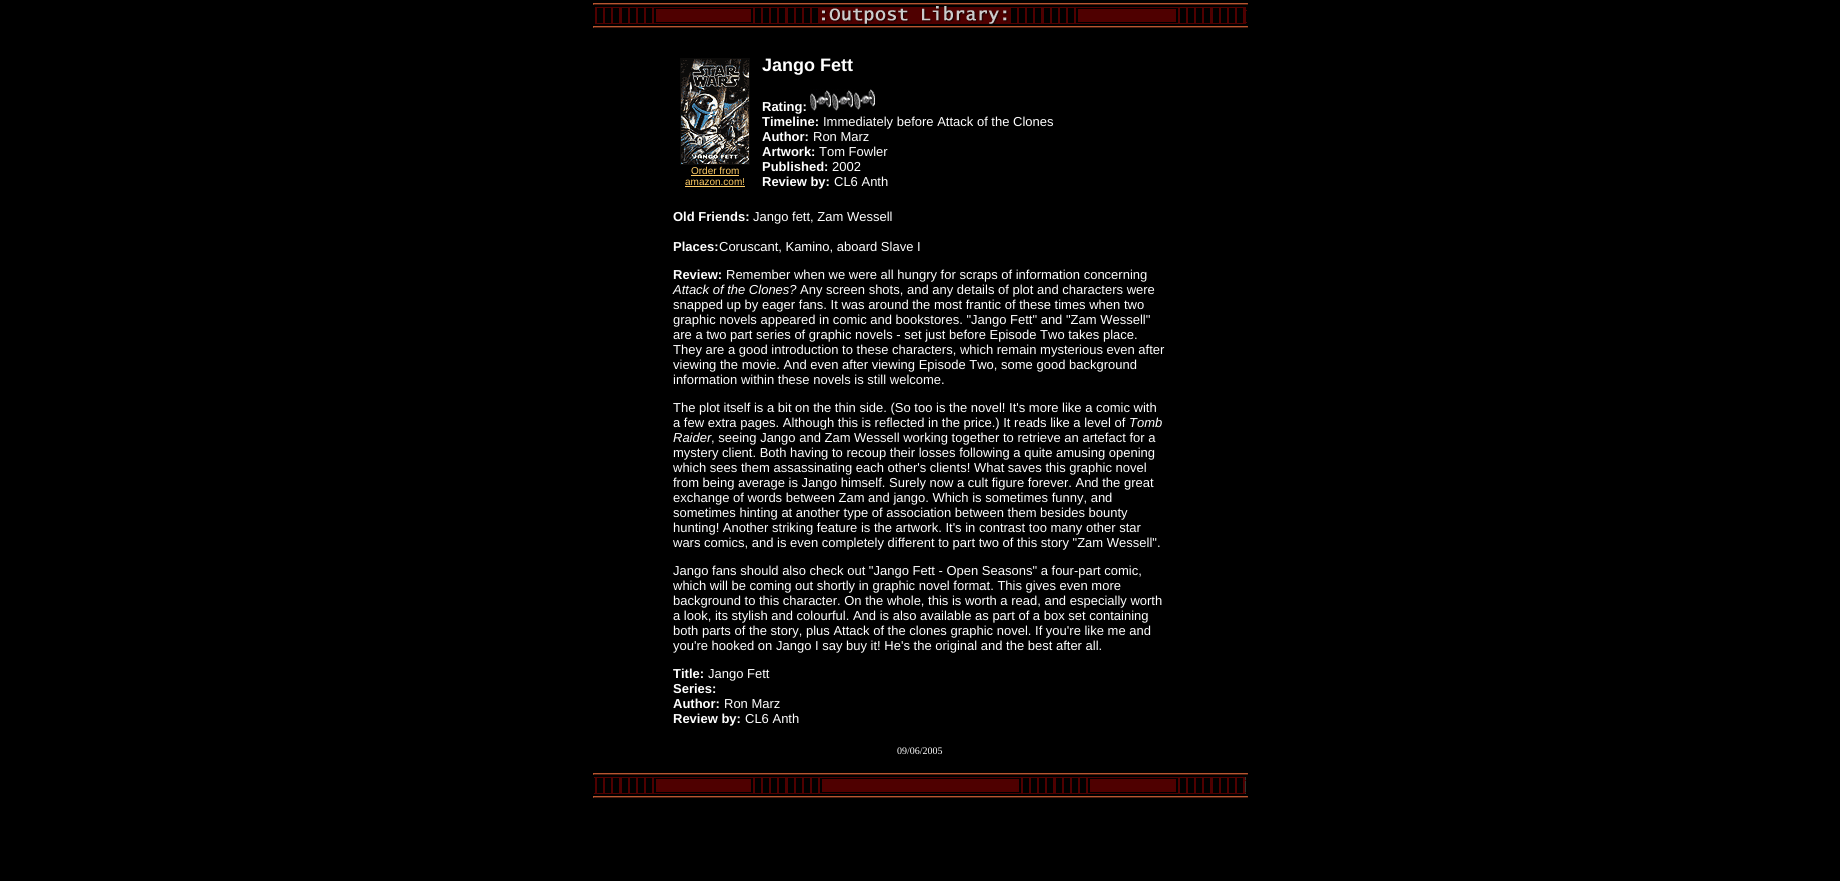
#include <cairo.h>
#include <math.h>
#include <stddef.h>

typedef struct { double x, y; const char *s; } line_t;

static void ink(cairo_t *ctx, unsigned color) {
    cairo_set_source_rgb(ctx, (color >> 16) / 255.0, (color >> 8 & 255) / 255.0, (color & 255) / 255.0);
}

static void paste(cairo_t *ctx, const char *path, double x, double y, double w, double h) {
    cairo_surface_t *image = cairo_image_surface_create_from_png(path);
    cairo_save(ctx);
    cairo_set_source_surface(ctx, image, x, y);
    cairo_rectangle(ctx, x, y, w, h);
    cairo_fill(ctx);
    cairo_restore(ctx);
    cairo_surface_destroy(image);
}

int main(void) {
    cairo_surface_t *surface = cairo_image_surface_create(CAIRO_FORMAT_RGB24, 1840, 881);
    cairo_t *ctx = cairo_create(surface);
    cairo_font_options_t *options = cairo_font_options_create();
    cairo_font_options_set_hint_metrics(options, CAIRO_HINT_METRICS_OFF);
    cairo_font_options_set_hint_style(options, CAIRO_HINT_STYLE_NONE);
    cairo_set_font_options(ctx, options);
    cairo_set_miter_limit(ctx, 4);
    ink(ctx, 0x000000);
    cairo_paint(ctx);
    paste(ctx, "media/1.png", 593, 3, 655, 25);
    paste(ctx, "media/2.png", 680, 58, 70, 107);
    cairo_select_font_face(ctx, "Liberation Sans", CAIRO_FONT_SLANT_NORMAL, CAIRO_FONT_WEIGHT_NORMAL);
    cairo_set_font_size(ctx, 10);
    ink(ctx, 0xFFCC66);
    cairo_move_to(ctx, 691, 174);
    cairo_show_text(ctx, "Order from");
    cairo_rectangle(ctx, 691, 175, 48, 1);
    cairo_fill(ctx);
    cairo_move_to(ctx, 685, 185);
    cairo_show_text(ctx, "amazon.com!");
    cairo_rectangle(ctx, 685, 186, 60, 1);
    cairo_fill(ctx);
    cairo_select_font_face(ctx, "Liberation Sans", CAIRO_FONT_SLANT_NORMAL, CAIRO_FONT_WEIGHT_BOLD);
    cairo_set_font_size(ctx, 18);
    ink(ctx, 0xFFFFFF);
    cairo_move_to(ctx, 762, 71);
    cairo_show_text(ctx, "Jango Fett");
    cairo_set_font_size(ctx, 13);
    cairo_move_to(ctx, 762, 111);
    cairo_show_text(ctx, "Rating:");
    paste(ctx, "media/3.png", 810, 89, 65, 22);
    cairo_move_to(ctx, 762, 126);
    cairo_show_text(ctx, "Timeline:");
    cairo_select_font_face(ctx, "Liberation Sans", CAIRO_FONT_SLANT_NORMAL, CAIRO_FONT_WEIGHT_NORMAL);
    cairo_move_to(ctx, 823, 126);
    cairo_show_text(ctx, "Immediately before Attack of the Clones");
    cairo_select_font_face(ctx, "Liberation Sans", CAIRO_FONT_SLANT_NORMAL, CAIRO_FONT_WEIGHT_BOLD);
    cairo_move_to(ctx, 762, 141);
    cairo_show_text(ctx, "Author:");
    cairo_select_font_face(ctx, "Liberation Sans", CAIRO_FONT_SLANT_NORMAL, CAIRO_FONT_WEIGHT_NORMAL);
    cairo_move_to(ctx, 813, 141);
    cairo_show_text(ctx, "Ron Marz");
    cairo_select_font_face(ctx, "Liberation Sans", CAIRO_FONT_SLANT_NORMAL, CAIRO_FONT_WEIGHT_BOLD);
    cairo_move_to(ctx, 762, 156);
    cairo_show_text(ctx, "Artwork:");
    cairo_select_font_face(ctx, "Liberation Sans", CAIRO_FONT_SLANT_NORMAL, CAIRO_FONT_WEIGHT_NORMAL);
    cairo_move_to(ctx, 819, 156);
    cairo_show_text(ctx, "Tom Fowler");
    cairo_select_font_face(ctx, "Liberation Sans", CAIRO_FONT_SLANT_NORMAL, CAIRO_FONT_WEIGHT_BOLD);
    cairo_move_to(ctx, 762, 171);
    cairo_show_text(ctx, "Published:");
    cairo_select_font_face(ctx, "Liberation Sans", CAIRO_FONT_SLANT_NORMAL, CAIRO_FONT_WEIGHT_NORMAL);
    cairo_move_to(ctx, 832, 171);
    cairo_show_text(ctx, "2002");
    cairo_select_font_face(ctx, "Liberation Sans", CAIRO_FONT_SLANT_NORMAL, CAIRO_FONT_WEIGHT_BOLD);
    cairo_move_to(ctx, 762, 186);
    cairo_show_text(ctx, "Review by:");
    cairo_select_font_face(ctx, "Liberation Sans", CAIRO_FONT_SLANT_NORMAL, CAIRO_FONT_WEIGHT_NORMAL);
    cairo_move_to(ctx, 834, 186);
    cairo_show_text(ctx, "CL6 Anth");
    cairo_select_font_face(ctx, "Liberation Sans", CAIRO_FONT_SLANT_NORMAL, CAIRO_FONT_WEIGHT_BOLD);
    cairo_move_to(ctx, 673, 221);
    cairo_show_text(ctx, "Old Friends:");
    cairo_select_font_face(ctx, "Liberation Sans", CAIRO_FONT_SLANT_NORMAL, CAIRO_FONT_WEIGHT_NORMAL);
    cairo_move_to(ctx, 753, 221);
    cairo_show_text(ctx, "Jango fett, Zam Wessell");
    cairo_select_font_face(ctx, "Liberation Sans", CAIRO_FONT_SLANT_NORMAL, CAIRO_FONT_WEIGHT_BOLD);
    cairo_move_to(ctx, 673, 251);
    cairo_show_text(ctx, "Places:");
    cairo_select_font_face(ctx, "Liberation Sans", CAIRO_FONT_SLANT_NORMAL, CAIRO_FONT_WEIGHT_NORMAL);
    cairo_move_to(ctx, 719, 251);
    cairo_show_text(ctx, "Coruscant, Kamino, aboard Slave I");
    cairo_select_font_face(ctx, "Liberation Sans", CAIRO_FONT_SLANT_NORMAL, CAIRO_FONT_WEIGHT_BOLD);
    cairo_move_to(ctx, 673, 279);
    cairo_show_text(ctx, "Review:");
    cairo_select_font_face(ctx, "Liberation Sans", CAIRO_FONT_SLANT_NORMAL, CAIRO_FONT_WEIGHT_NORMAL);
    cairo_move_to(ctx, 726, 279);
    cairo_show_text(ctx, "Remember when we were all hungry for scraps of information concerning");
    cairo_select_font_face(ctx, "Liberation Sans", CAIRO_FONT_SLANT_ITALIC, CAIRO_FONT_WEIGHT_NORMAL);
    cairo_move_to(ctx, 673, 294);
    cairo_show_text(ctx, "Attack of the Clones?");
    cairo_select_font_face(ctx, "Liberation Sans", CAIRO_FONT_SLANT_NORMAL, CAIRO_FONT_WEIGHT_NORMAL);
    {
        static const line_t items[] = {
            {800, 294, "Any screen shots, and any details of plot and characters were"},
            {673, 309, "snapped up by eager fans. It was around the most frantic of these times when two"},
            {673, 324, "graphic novels appeared in comic and bookstores. \"Jango Fett\" and \"Zam Wessell\""},
            {673, 339, "are a two part series of graphic novels - set just before Episode Two takes place."},
            {673, 354, "They are a good introduction to these characters, which remain mysterious even after"},
            {673, 369, "viewing the movie. And even after viewing Episode Two, some good background"},
            {673, 384, "information within these novels is still welcome."},
            {673, 412, "The plot itself is a bit on the thin side. (So too is the novel! It's more like a comic with"},
            {673, 427, "a few extra pages. Although this is reflected in the price.) It reads like a level of"},
        };
        for (size_t i = 0; i < sizeof items / sizeof *items; i++) {
            cairo_move_to(ctx, items[i].x, items[i].y);
            cairo_show_text(ctx, items[i].s);
        }
    }
    cairo_select_font_face(ctx, "Liberation Sans", CAIRO_FONT_SLANT_ITALIC, CAIRO_FONT_WEIGHT_NORMAL);
    cairo_move_to(ctx, 1129, 427);
    cairo_show_text(ctx, "Tomb");
    cairo_move_to(ctx, 673, 442);
    cairo_show_text(ctx, "Raider");
    cairo_select_font_face(ctx, "Liberation Sans", CAIRO_FONT_SLANT_NORMAL, CAIRO_FONT_WEIGHT_NORMAL);
    {
        static const line_t items[] = {
            {711, 442, ", seeing Jango and Zam Wessell working together to retrieve an artefact for a"},
            {673, 457, "mystery client. Both having to recoup their losses following a quite amusing opening"},
            {673, 472, "which sees them assassinating each other's clients! What saves this graphic novel"},
            {673, 487, "from being average is Jango himself. Surely now a cult figure forever. And the great"},
            {673, 502, "exchange of words between Zam and jango. Which is sometimes funny, and"},
            {673, 517, "sometimes hinting at another type of association between them besides bounty"},
            {673, 532, "hunting! Another striking feature is the artwork. It's in contrast too many other star"},
            {673, 547, "wars comics, and is even completely different to part two of this story \"Zam Wessell\"."},
            {673, 575, "Jango fans should also check out \"Jango Fett - Open Seasons\" a four-part comic,"},
            {673, 590, "which will be coming out shortly in graphic novel format. This gives even more"},
            {673, 605, "background to this character. On the whole, this is worth a read, and especially worth"},
            {673, 620, "a look, its stylish and colourful. And is also available as part of a box set containing"},
            {673, 635, "both parts of the story, plus Attack of the clones graphic novel. If you're like me and"},
            {673, 650, "you're hooked on Jango I say buy it! He's the original and the best after all."},
        };
        for (size_t i = 0; i < sizeof items / sizeof *items; i++) {
            cairo_move_to(ctx, items[i].x, items[i].y);
            cairo_show_text(ctx, items[i].s);
        }
    }
    cairo_select_font_face(ctx, "Liberation Sans", CAIRO_FONT_SLANT_NORMAL, CAIRO_FONT_WEIGHT_BOLD);
    cairo_move_to(ctx, 673, 678);
    cairo_show_text(ctx, "Title:");
    cairo_select_font_face(ctx, "Liberation Sans", CAIRO_FONT_SLANT_NORMAL, CAIRO_FONT_WEIGHT_NORMAL);
    cairo_move_to(ctx, 708, 678);
    cairo_show_text(ctx, "Jango Fett");
    cairo_select_font_face(ctx, "Liberation Sans", CAIRO_FONT_SLANT_NORMAL, CAIRO_FONT_WEIGHT_BOLD);
    cairo_move_to(ctx, 673, 693);
    cairo_show_text(ctx, "Series:");
    cairo_move_to(ctx, 673, 708);
    cairo_show_text(ctx, "Author:");
    cairo_select_font_face(ctx, "Liberation Sans", CAIRO_FONT_SLANT_NORMAL, CAIRO_FONT_WEIGHT_NORMAL);
    cairo_move_to(ctx, 724, 708);
    cairo_show_text(ctx, "Ron Marz");
    cairo_select_font_face(ctx, "Liberation Sans", CAIRO_FONT_SLANT_NORMAL, CAIRO_FONT_WEIGHT_BOLD);
    cairo_move_to(ctx, 673, 723);
    cairo_show_text(ctx, "Review by:");
    cairo_select_font_face(ctx, "Liberation Sans", CAIRO_FONT_SLANT_NORMAL, CAIRO_FONT_WEIGHT_NORMAL);
    cairo_move_to(ctx, 745, 723);
    cairo_show_text(ctx, "CL6 Anth");
    cairo_select_font_face(ctx, "Liberation Serif", CAIRO_FONT_SLANT_NORMAL, CAIRO_FONT_WEIGHT_NORMAL);
    cairo_set_font_size(ctx, 10);
    cairo_move_to(ctx, 897, 754);
    cairo_show_text(ctx, "09/06/2005");
    paste(ctx, "media/4.png", 593, 773, 655, 25);
    cairo_surface_write_to_png(surface, "image.png");
    cairo_font_options_destroy(options);
    cairo_destroy(ctx);
    cairo_surface_destroy(surface);
    return 0;
}
